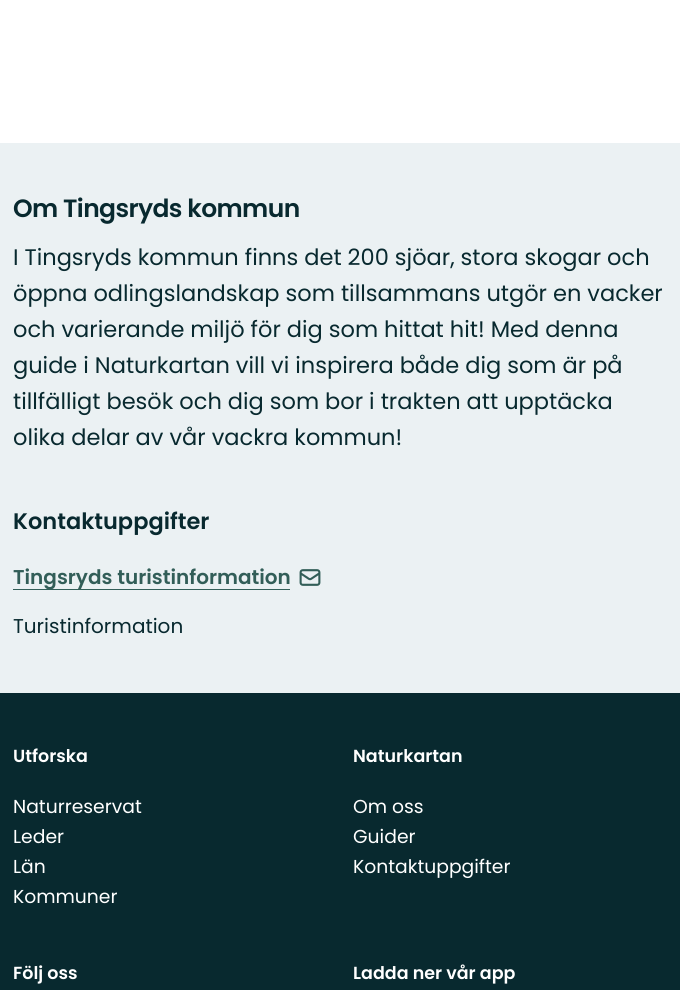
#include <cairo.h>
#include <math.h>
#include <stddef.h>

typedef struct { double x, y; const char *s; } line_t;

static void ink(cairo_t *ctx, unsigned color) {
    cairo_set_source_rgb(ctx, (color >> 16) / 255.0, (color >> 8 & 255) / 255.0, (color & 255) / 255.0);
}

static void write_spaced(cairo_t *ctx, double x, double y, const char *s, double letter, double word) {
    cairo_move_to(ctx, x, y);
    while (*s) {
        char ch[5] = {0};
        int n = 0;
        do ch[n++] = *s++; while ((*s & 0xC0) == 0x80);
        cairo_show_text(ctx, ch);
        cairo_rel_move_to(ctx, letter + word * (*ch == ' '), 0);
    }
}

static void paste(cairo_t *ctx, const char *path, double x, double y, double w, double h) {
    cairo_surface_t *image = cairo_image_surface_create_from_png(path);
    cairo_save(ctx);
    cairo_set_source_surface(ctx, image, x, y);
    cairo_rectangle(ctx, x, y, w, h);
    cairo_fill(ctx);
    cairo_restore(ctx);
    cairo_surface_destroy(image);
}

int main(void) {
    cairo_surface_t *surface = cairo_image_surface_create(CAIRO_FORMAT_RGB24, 680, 990);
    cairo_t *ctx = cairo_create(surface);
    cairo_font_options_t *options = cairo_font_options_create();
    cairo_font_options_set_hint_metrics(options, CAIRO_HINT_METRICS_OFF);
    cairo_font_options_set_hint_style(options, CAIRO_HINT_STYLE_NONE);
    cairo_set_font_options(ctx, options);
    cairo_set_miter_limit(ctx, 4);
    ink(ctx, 0xFFFFFF);
    cairo_paint(ctx);
    ink(ctx, 0xEBF1F3);
    cairo_rectangle(ctx, 0, 143, 680, 550);
    cairo_fill(ctx);
    cairo_select_font_face(ctx, "Poppins SemiBold", CAIRO_FONT_SLANT_NORMAL, CAIRO_FONT_WEIGHT_NORMAL);
    cairo_set_font_size(ctx, 25);
    ink(ctx, 0x08292F);
    write_spaced(ctx, 13, 217, "Om Tingsryds kommun", -0.6, 0);
    cairo_select_font_face(ctx, "Poppins", CAIRO_FONT_SLANT_NORMAL, CAIRO_FONT_WEIGHT_NORMAL);
    cairo_set_font_size(ctx, 22.5);
    {
        static const line_t items[] = {
            {13, 265, "I Tingsryds kommun finns det 200 sjöar, stora skogar och"},
            {13, 301, "öppna odlingslandskap som tillsammans utgör en vacker"},
            {13, 337, "och varierande miljö för dig som hittat hit! Med denna"},
            {13, 373, "guide i Naturkartan vill vi inspirera både dig som är på"},
            {13, 409, "tillfälligt besök och dig som bor i trakten att upptäcka"},
            {13, 445, "olika delar av vår vackra kommun!"},
        };
        for (size_t i = 0; i < sizeof items / sizeof *items; i++) {
            cairo_move_to(ctx, items[i].x, items[i].y);
            cairo_show_text(ctx, items[i].s);
        }
    }
    cairo_select_font_face(ctx, "Poppins SemiBold", CAIRO_FONT_SLANT_NORMAL, CAIRO_FONT_WEIGHT_NORMAL);
    cairo_move_to(ctx, 13, 529);
    cairo_show_text(ctx, "Kontaktuppgifter");
    ink(ctx, 0x325E58);
    cairo_rectangle(ctx, 13, 589, 277, 1);
    cairo_fill(ctx);
    cairo_set_font_size(ctx, 20);
    cairo_move_to(ctx, 13, 584);
    cairo_show_text(ctx, "Tingsryds turistinformation");
    paste(ctx, "media/1.png", 299, 569, 22, 17);
    cairo_select_font_face(ctx, "Poppins", CAIRO_FONT_SLANT_NORMAL, CAIRO_FONT_WEIGHT_NORMAL);
    ink(ctx, 0x08292F);
    cairo_move_to(ctx, 13, 633);
    cairo_show_text(ctx, "Turistinformation");
    cairo_rectangle(ctx, 0, 693, 680, 297);
    cairo_fill(ctx);
    cairo_select_font_face(ctx, "Poppins SemiBold", CAIRO_FONT_SLANT_NORMAL, CAIRO_FONT_WEIGHT_NORMAL);
    cairo_set_font_size(ctx, 17.5);
    ink(ctx, 0xFFFFFF);
    cairo_move_to(ctx, 13, 762);
    cairo_show_text(ctx, "Utforska");
    cairo_select_font_face(ctx, "Poppins", CAIRO_FONT_SLANT_NORMAL, CAIRO_FONT_WEIGHT_NORMAL);
    cairo_set_font_size(ctx, 18.75);
    {
        static const line_t items[] = {
            {13, 813, "Naturreservat"},
            {13, 843, "Leder"},
            {13, 873, "Län"},
            {13, 903, "Kommuner"},
        };
        for (size_t i = 0; i < sizeof items / sizeof *items; i++) {
            cairo_move_to(ctx, items[i].x, items[i].y);
            cairo_show_text(ctx, items[i].s);
        }
    }
    cairo_select_font_face(ctx, "Poppins SemiBold", CAIRO_FONT_SLANT_NORMAL, CAIRO_FONT_WEIGHT_NORMAL);
    cairo_set_font_size(ctx, 17.5);
    cairo_move_to(ctx, 353, 762);
    cairo_show_text(ctx, "Naturkartan");
    cairo_select_font_face(ctx, "Poppins", CAIRO_FONT_SLANT_NORMAL, CAIRO_FONT_WEIGHT_NORMAL);
    cairo_set_font_size(ctx, 18.75);
    {
        static const line_t items[] = {
            {353, 813, "Om oss"},
            {353, 843, "Guider"},
            {353, 873, "Kontaktuppgifter"},
        };
        for (size_t i = 0; i < sizeof items / sizeof *items; i++) {
            cairo_move_to(ctx, items[i].x, items[i].y);
            cairo_show_text(ctx, items[i].s);
        }
    }
    cairo_select_font_face(ctx, "Poppins SemiBold", CAIRO_FONT_SLANT_NORMAL, CAIRO_FONT_WEIGHT_NORMAL);
    cairo_set_font_size(ctx, 17.5);
    cairo_move_to(ctx, 13, 979);
    cairo_show_text(ctx, "Följ oss");
    cairo_move_to(ctx, 353, 979);
    cairo_show_text(ctx, "Ladda ner vår app");
    cairo_surface_write_to_png(surface, "image.png");
    cairo_font_options_destroy(options);
    cairo_destroy(ctx);
    cairo_surface_destroy(surface);
    return 0;
}
